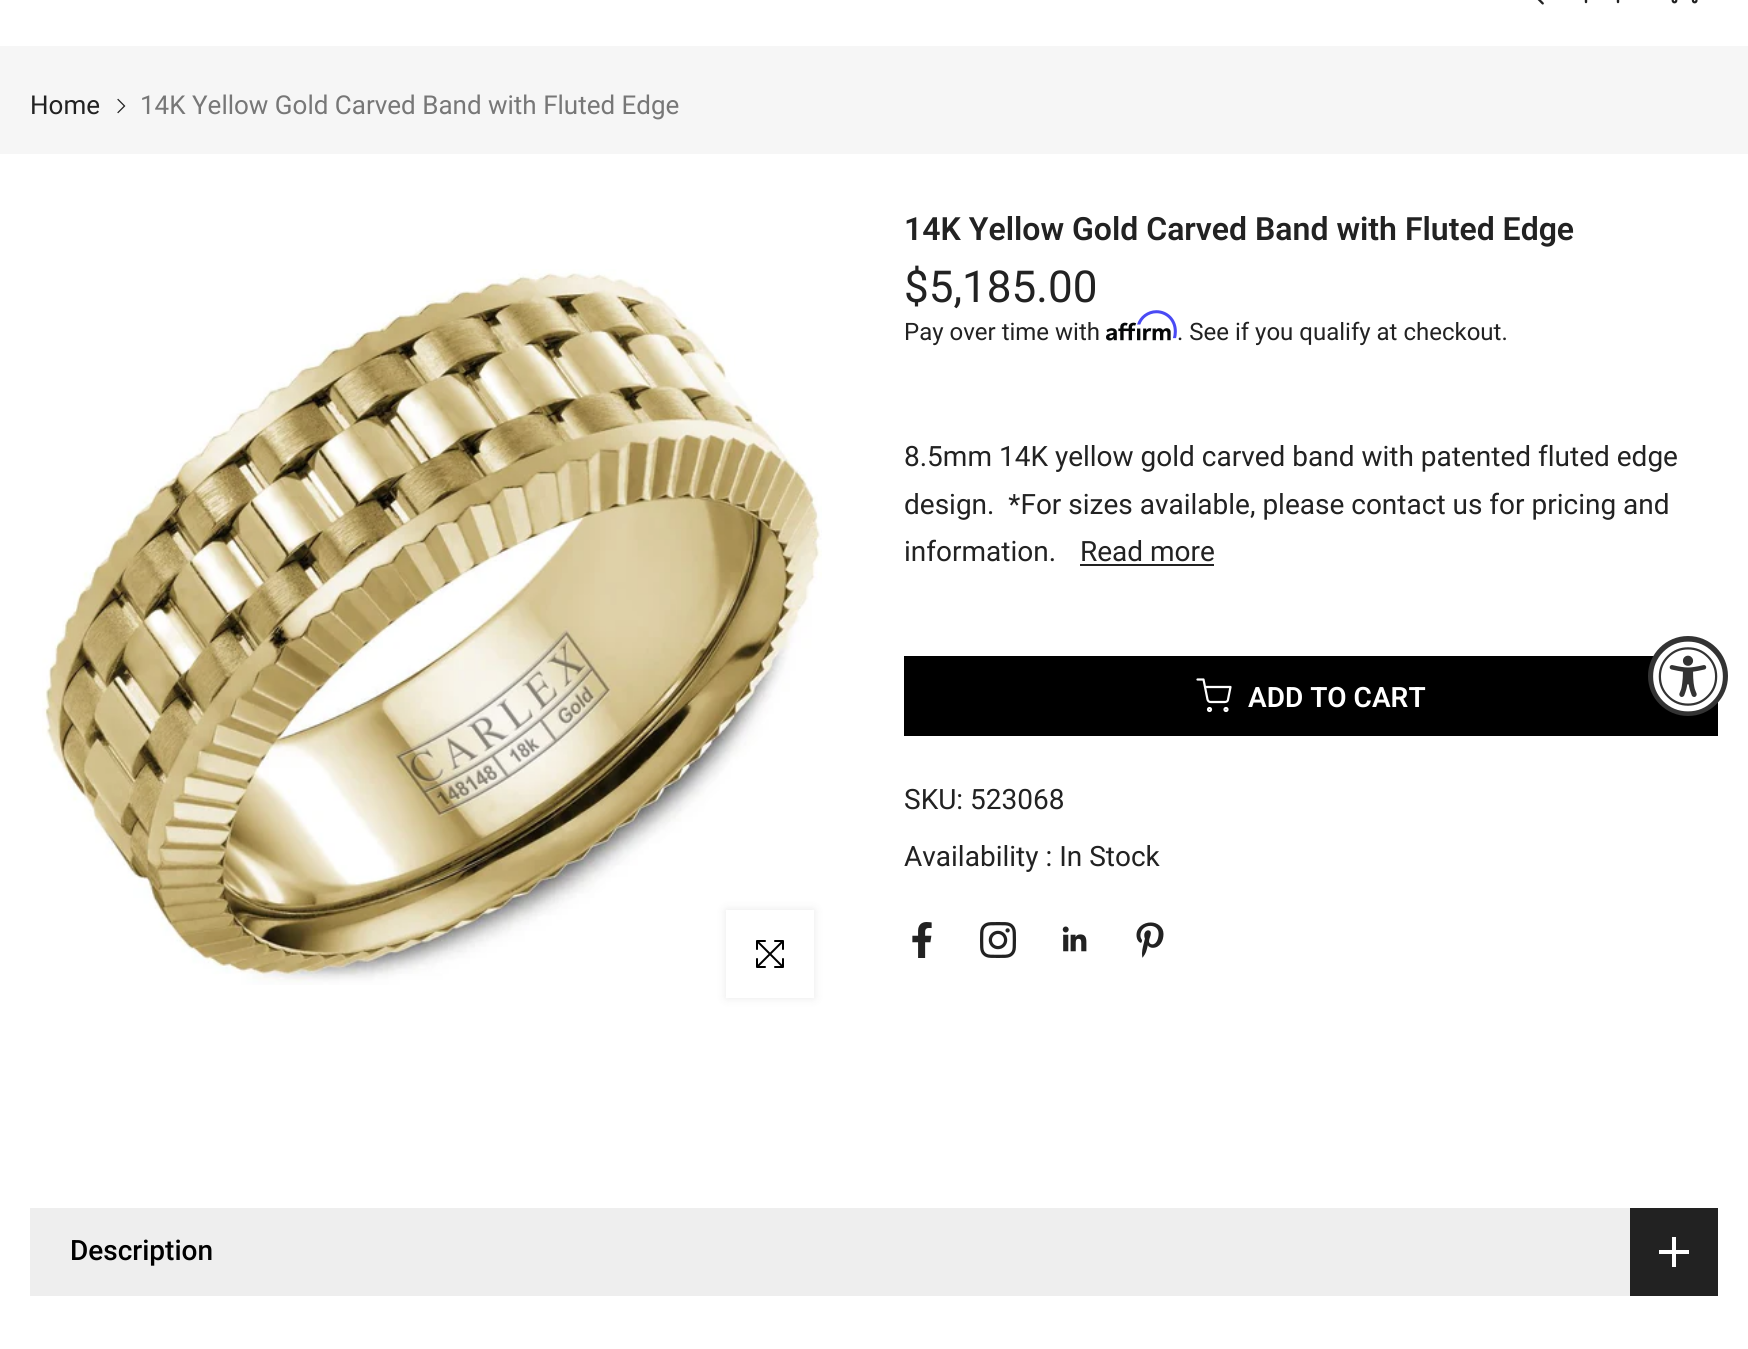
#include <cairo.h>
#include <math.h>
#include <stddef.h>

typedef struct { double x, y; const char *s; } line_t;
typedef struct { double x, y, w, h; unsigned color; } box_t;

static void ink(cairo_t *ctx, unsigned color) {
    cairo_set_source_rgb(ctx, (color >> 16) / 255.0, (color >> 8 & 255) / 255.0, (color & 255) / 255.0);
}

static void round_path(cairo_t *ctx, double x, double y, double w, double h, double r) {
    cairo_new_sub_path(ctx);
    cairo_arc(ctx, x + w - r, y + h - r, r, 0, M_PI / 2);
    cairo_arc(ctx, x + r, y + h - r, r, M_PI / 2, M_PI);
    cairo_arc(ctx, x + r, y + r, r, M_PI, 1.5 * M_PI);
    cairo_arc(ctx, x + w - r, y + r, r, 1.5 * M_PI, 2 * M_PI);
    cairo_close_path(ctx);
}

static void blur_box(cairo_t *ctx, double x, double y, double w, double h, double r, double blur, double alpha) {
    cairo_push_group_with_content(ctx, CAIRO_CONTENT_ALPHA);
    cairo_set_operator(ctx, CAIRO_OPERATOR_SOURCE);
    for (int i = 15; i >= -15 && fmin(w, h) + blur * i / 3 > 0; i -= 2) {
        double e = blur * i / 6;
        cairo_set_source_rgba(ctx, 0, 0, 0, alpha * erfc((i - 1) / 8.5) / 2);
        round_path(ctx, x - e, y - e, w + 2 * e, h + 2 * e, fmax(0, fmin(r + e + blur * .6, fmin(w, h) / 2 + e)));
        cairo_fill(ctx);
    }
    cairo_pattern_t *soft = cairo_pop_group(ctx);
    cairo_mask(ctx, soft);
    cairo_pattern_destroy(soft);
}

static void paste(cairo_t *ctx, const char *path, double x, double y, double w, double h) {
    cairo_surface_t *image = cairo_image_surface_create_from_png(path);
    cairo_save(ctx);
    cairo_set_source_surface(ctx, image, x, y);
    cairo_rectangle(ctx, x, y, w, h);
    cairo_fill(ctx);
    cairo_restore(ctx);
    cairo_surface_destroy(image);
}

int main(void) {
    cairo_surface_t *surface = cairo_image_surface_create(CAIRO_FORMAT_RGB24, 1748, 1349);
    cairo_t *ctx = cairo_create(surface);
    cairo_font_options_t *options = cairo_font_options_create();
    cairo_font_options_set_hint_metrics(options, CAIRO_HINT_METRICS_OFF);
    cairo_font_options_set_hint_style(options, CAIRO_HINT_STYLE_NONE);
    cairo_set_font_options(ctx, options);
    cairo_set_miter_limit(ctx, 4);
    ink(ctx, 0xFFFFFF);
    cairo_paint(ctx);
    paste(ctx, "media/1.png", 1537, 0, 7, 5);
    cairo_new_path(ctx);
    cairo_move_to(ctx, 1618, 2);
    cairo_line_to(ctx, 1618, -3.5);
    cairo_curve_to(ctx, 1616.5, -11.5, 1608, -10, 1602, -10);
    cairo_curve_to(ctx, 1596, -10, 1587.5, -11.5, 1586, -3.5);
    cairo_line_to(ctx, 1586, 2);
    ink(ctx, 0x222222);
    cairo_set_line_width(ctx, 2.4);
    cairo_set_line_cap(ctx, CAIRO_LINE_CAP_ROUND);
    cairo_set_line_join(ctx, CAIRO_LINE_JOIN_ROUND);
    cairo_stroke(ctx);
    cairo_arc(ctx, 1674.5, 0.5, 1.8, 0, 2 * M_PI);
    cairo_set_line_width(ctx, 2.2);
    cairo_set_line_cap(ctx, CAIRO_LINE_CAP_BUTT);
    cairo_set_line_join(ctx, CAIRO_LINE_JOIN_MITER);
    cairo_stroke(ctx);
    cairo_arc(ctx, 1694.7, 0.5, 1.8, 0, 2 * M_PI);
    cairo_stroke(ctx);
    ink(ctx, 0xF6F6F6);
    cairo_rectangle(ctx, 0, 46, 1748, 108);
    cairo_fill(ctx);
    cairo_select_font_face(ctx, "Roboto", CAIRO_FONT_SLANT_NORMAL, CAIRO_FONT_WEIGHT_NORMAL);
    cairo_set_font_size(ctx, 26);
    ink(ctx, 0x222222);
    cairo_move_to(ctx, 30, 114);
    cairo_show_text(ctx, "Home");
    paste(ctx, "media/2.png", 117, 98, 9, 16);
    ink(ctx, 0x777777);
    cairo_move_to(ctx, 140, 114);
    cairo_show_text(ctx, "14K Yellow Gold Carved Band with Fluted Edge");
    paste(ctx, "media/3.png", 42, 269, 780, 716);
    cairo_save(ctx);
    cairo_set_fill_rule(ctx, CAIRO_FILL_RULE_EVEN_ODD);
    cairo_new_path(ctx);
    cairo_move_to(ctx, 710, 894);
    cairo_line_to(ctx, 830, 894);
    cairo_line_to(ctx, 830, 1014);
    cairo_line_to(ctx, 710, 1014);
    cairo_close_path(ctx);
    cairo_move_to(ctx, 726, 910);
    cairo_line_to(ctx, 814, 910);
    cairo_line_to(ctx, 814, 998);
    cairo_line_to(ctx, 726, 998);
    cairo_close_path(ctx);
    cairo_clip(ctx);
    ink(ctx, 0x000000);
    blur_box(ctx, 726, 910, 88, 88, 0, 5, 0.09);
    cairo_restore(ctx);
    paste(ctx, "media/4.png", 756, 940, 28, 28);
    cairo_select_font_face(ctx, "Roboto SemiBold", CAIRO_FONT_SLANT_NORMAL, CAIRO_FONT_WEIGHT_NORMAL);
    cairo_set_font_size(ctx, 32);
    ink(ctx, 0x222222);
    cairo_move_to(ctx, 904, 240);
    cairo_show_text(ctx, "14K Yellow Gold Carved Band with Fluted Edge");
    cairo_select_font_face(ctx, "Roboto", CAIRO_FONT_SLANT_NORMAL, CAIRO_FONT_WEIGHT_NORMAL);
    cairo_set_font_size(ctx, 44);
    cairo_move_to(ctx, 904, 302);
    cairo_show_text(ctx, "$5,185.00");
    cairo_set_font_size(ctx, 24);
    cairo_move_to(ctx, 904, 340);
    cairo_show_text(ctx, "Pay over time with");
    paste(ctx, "media/6.png", 1106, 322, 65, 19);
    paste(ctx, "media/5.png", 1137, 310, 40, 29);
    cairo_move_to(ctx, 1177, 340);
    cairo_show_text(ctx, ". See if you qualify at checkout.");
    cairo_set_font_size(ctx, 28);
    {
        static const line_t items[] = {
            {904, 466, "8.5mm 14K yellow gold carved band with patented fluted edge"},
            {904, 514, "design.  *For sizes available, please contact us for pricing and"},
            {904, 561, "information."},
            {1080, 561, "Read more"},
        };
        for (size_t i = 0; i < sizeof items / sizeof *items; i++) {
            cairo_move_to(ctx, items[i].x, items[i].y);
            cairo_show_text(ctx, items[i].s);
        }
    }
    cairo_rectangle(ctx, 1080, 564, 134, 2);
    cairo_fill(ctx);
    ink(ctx, 0x000000);
    cairo_rectangle(ctx, 904, 656, 814, 80);
    cairo_fill(ctx);
    cairo_arc(ctx, 1209.5, 709.5, 1.5, 0, 2 * M_PI);
    ink(ctx, 0xFFFFFF);
    cairo_stroke(ctx);
    cairo_arc(ctx, 1226, 709.5, 1.5, 0, 2 * M_PI);
    cairo_stroke(ctx);
    cairo_new_path(ctx);
    cairo_move_to(ctx, 1197.5, 679.5);
    cairo_line_to(ctx, 1203.5, 679.5);
    cairo_line_to(ctx, 1207.5, 699.5);
    cairo_curve_to(ctx, 1208, 701, 1209, 702, 1210.5, 702);
    cairo_line_to(ctx, 1225, 702);
    cairo_curve_to(ctx, 1226.5, 702, 1228, 701, 1228, 699.5);
    cairo_line_to(ctx, 1230.5, 687);
    cairo_line_to(ctx, 1205, 687);
    cairo_set_line_cap(ctx, CAIRO_LINE_CAP_ROUND);
    cairo_set_line_join(ctx, CAIRO_LINE_JOIN_ROUND);
    cairo_stroke(ctx);
    cairo_select_font_face(ctx, "Roboto SemiBold", CAIRO_FONT_SLANT_NORMAL, CAIRO_FONT_WEIGHT_NORMAL);
    cairo_move_to(ctx, 1248, 707);
    cairo_show_text(ctx, "ADD TO CART");
    cairo_select_font_face(ctx, "Roboto", CAIRO_FONT_SLANT_NORMAL, CAIRO_FONT_WEIGHT_NORMAL);
    ink(ctx, 0x222222);
    cairo_move_to(ctx, 904, 809);
    cairo_show_text(ctx, "SKU: 523068");
    cairo_move_to(ctx, 904, 866);
    cairo_show_text(ctx, "Availability : In Stock");
    paste(ctx, "media/7.png", 912, 922, 20, 36);
    paste(ctx, "media/8.png", 980, 922, 36, 36);
    paste(ctx, "media/9.png", 1062, 926, 25, 26);
    paste(ctx, "media/10.png", 1136, 922, 28, 36);
    ink(ctx, 0xEEEEEE);
    cairo_rectangle(ctx, 30, 1208, 1600, 88);
    cairo_fill(ctx);
    cairo_select_font_face(ctx, "Roboto Medium", CAIRO_FONT_SLANT_NORMAL, CAIRO_FONT_WEIGHT_NORMAL);
    ink(ctx, 0x000000);
    cairo_move_to(ctx, 70, 1260);
    cairo_show_text(ctx, "Description");
    {
        static const box_t items[] = {
            {1630, 1208, 88, 88, 0x222222},
            {1672, 1237, 4, 30, 0xFFFFFF},
            {1659, 1250, 30, 4, 0xFFFFFF},
        };
        for (size_t i = 0; i < sizeof items / sizeof *items; i++) {
            ink(ctx, items[i].color);
            cairo_rectangle(ctx, items[i].x, items[i].y, items[i].w, items[i].h);
            cairo_fill(ctx);
        }
    }
    ink(ctx, 0x333333);
    cairo_new_path(ctx);
    cairo_arc(ctx, 1688, 676, 40, 0, 2 * M_PI);
    cairo_fill(ctx);
    paste(ctx, "media/11.png", 1653, 641, 70, 71);
    cairo_surface_write_to_png(surface, "image.png");
    cairo_font_options_destroy(options);
    cairo_destroy(ctx);
    cairo_surface_destroy(surface);
    return 0;
}
